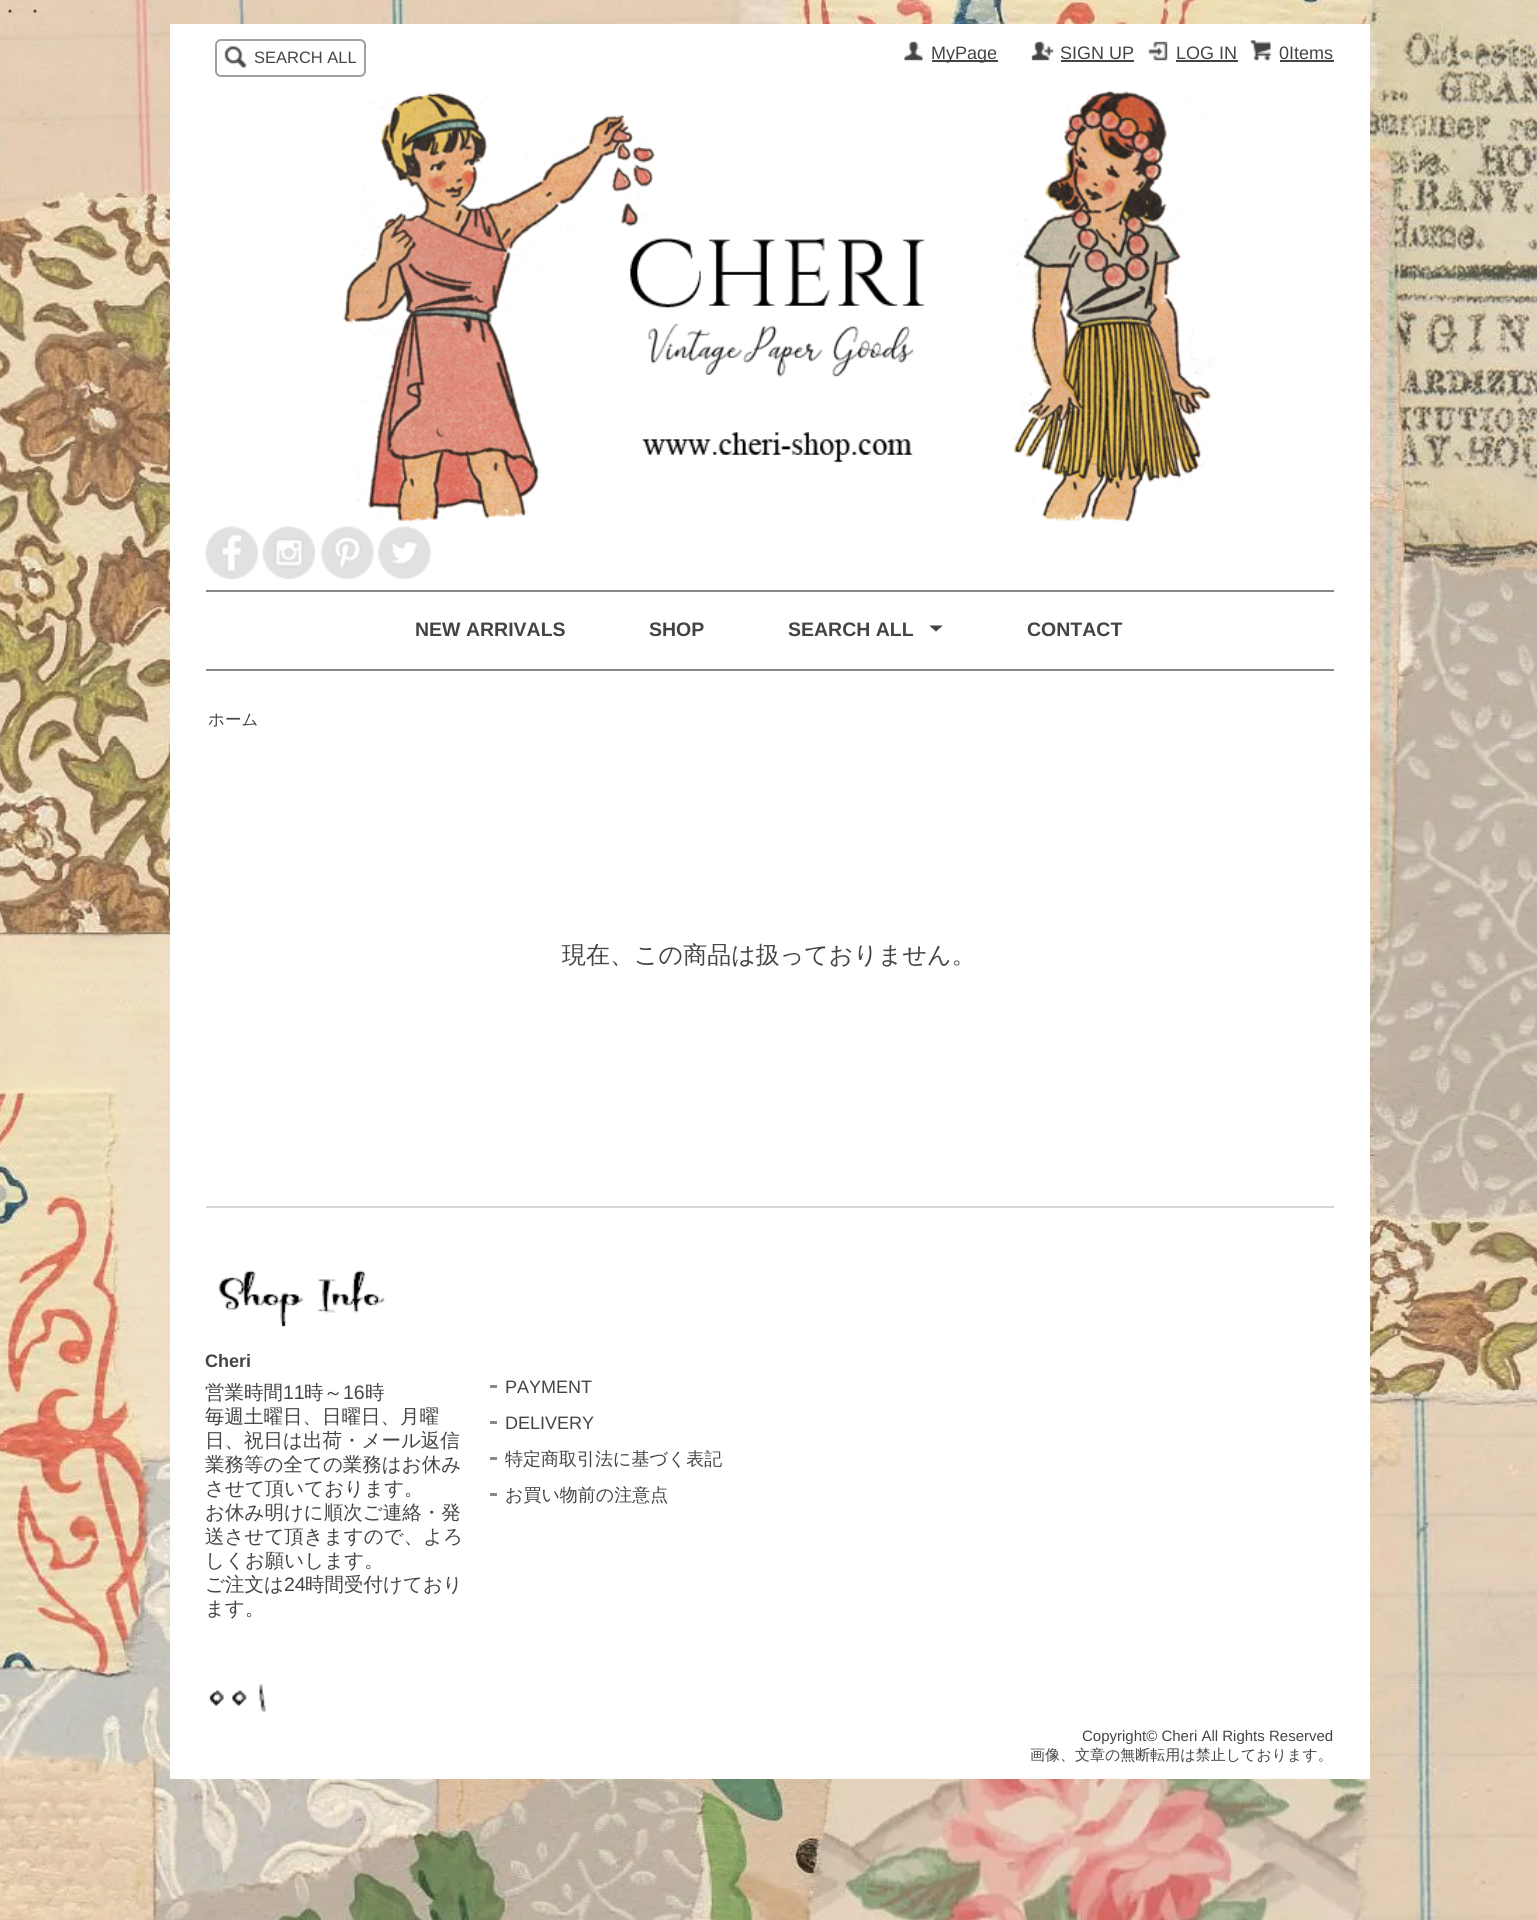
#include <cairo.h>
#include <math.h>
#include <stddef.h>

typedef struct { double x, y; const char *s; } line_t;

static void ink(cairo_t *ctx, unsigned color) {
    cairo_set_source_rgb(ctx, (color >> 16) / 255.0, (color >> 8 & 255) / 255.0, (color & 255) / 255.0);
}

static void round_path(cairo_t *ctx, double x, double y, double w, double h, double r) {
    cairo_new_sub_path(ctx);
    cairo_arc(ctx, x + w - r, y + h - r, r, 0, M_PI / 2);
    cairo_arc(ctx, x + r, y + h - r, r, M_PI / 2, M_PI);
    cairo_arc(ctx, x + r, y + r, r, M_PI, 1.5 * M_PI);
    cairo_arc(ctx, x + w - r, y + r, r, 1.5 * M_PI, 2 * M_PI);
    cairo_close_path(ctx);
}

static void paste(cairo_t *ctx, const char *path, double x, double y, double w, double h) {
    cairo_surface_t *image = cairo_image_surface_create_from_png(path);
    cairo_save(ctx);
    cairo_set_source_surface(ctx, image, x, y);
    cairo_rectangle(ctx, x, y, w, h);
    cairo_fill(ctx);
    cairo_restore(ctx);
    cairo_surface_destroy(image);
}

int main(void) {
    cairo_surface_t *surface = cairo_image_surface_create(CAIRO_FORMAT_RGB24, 1537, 1920);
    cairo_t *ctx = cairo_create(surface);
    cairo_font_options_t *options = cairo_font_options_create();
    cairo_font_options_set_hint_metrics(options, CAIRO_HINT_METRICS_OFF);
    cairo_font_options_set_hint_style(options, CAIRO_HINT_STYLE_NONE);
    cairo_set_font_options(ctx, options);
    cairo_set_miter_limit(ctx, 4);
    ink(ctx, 0xFFFFFF);
    cairo_paint(ctx);
    paste(ctx, "media/1.png", 0, 0, 1537, 1920);
    cairo_select_font_face(ctx, "WenQuanYi Zen Hei Medium", CAIRO_FONT_SLANT_NORMAL, CAIRO_FONT_WEIGHT_NORMAL);
    cairo_set_font_size(ctx, 19.5);
    ink(ctx, 0x444444);
    cairo_move_to(ctx, 0, 18);
    cairo_show_text(ctx, "・");
    cairo_move_to(ctx, 25, 18);
    cairo_show_text(ctx, "・");
    ink(ctx, 0xFFFFFF);
    cairo_rectangle(ctx, 170, 24, 1200, 1755);
    cairo_fill(ctx);
    round_path(ctx, 216, 40, 149, 36, 5);
    ink(ctx, 0xA0A0A0);
    cairo_stroke(ctx);
    paste(ctx, "media/2.png", 224, 46, 23, 22);
    cairo_select_font_face(ctx, "Liberation Sans", CAIRO_FONT_SLANT_NORMAL, CAIRO_FONT_WEIGHT_NORMAL);
    cairo_set_font_size(ctx, 16.5);
    ink(ctx, 0x444444);
    cairo_move_to(ctx, 254, 63);
    cairo_show_text(ctx, "SEARCH ALL");
    paste(ctx, "media/3.png", 904, 41, 19, 20);
    cairo_rectangle(ctx, 932, 60, 66, 2);
    cairo_fill(ctx);
    cairo_set_font_size(ctx, 18);
    cairo_move_to(ctx, 931, 59);
    cairo_show_text(ctx, "MyPage");
    paste(ctx, "media/4.png", 1031, 41, 23, 20);
    cairo_move_to(ctx, 1060, 59);
    cairo_show_text(ctx, "SIGN UP");
    cairo_rectangle(ctx, 1061, 60, 73, 2);
    cairo_fill(ctx);
    paste(ctx, "media/5.png", 1148, 41, 20, 20);
    cairo_move_to(ctx, 1176, 59);
    cairo_show_text(ctx, "LOG IN");
    cairo_rectangle(ctx, 1176, 60, 62, 2);
    cairo_fill(ctx);
    paste(ctx, "media/6.png", 1250, 40, 21, 21);
    cairo_move_to(ctx, 1279, 59);
    cairo_show_text(ctx, "0Items");
    cairo_rectangle(ctx, 1280, 60, 54, 2);
    cairo_fill(ctx);
    paste(ctx, "media/7.png", 324, 90, 890, 432);
    paste(ctx, "media/8.png", 205, 526, 53, 53);
    paste(ctx, "media/9.png", 262, 526, 53, 53);
    paste(ctx, "media/10.png", 321, 526, 53, 53);
    paste(ctx, "media/11.png", 378, 526, 53, 53);
    ink(ctx, 0x888888);
    cairo_rectangle(ctx, 206, 590, 1128, 2);
    cairo_fill(ctx);
    cairo_rectangle(ctx, 206, 669, 1128, 2);
    cairo_fill(ctx);
    cairo_select_font_face(ctx, "Liberation Sans", CAIRO_FONT_SLANT_NORMAL, CAIRO_FONT_WEIGHT_BOLD);
    cairo_set_font_size(ctx, 19.5);
    ink(ctx, 0x444444);
    {
        static const line_t items[] = {
            {415, 636, "NEW ARRIVALS"},
            {649, 636, "SHOP"},
            {788, 636, "SEARCH ALL"},
        };
        for (size_t i = 0; i < sizeof items / sizeof *items; i++) {
            cairo_move_to(ctx, items[i].x, items[i].y);
            cairo_show_text(ctx, items[i].s);
        }
    }
    paste(ctx, "media/12.png", 929, 625, 14, 7);
    cairo_move_to(ctx, 1027, 636);
    cairo_show_text(ctx, "CONTACT");
    cairo_select_font_face(ctx, "WenQuanYi Zen Hei Medium", CAIRO_FONT_SLANT_NORMAL, CAIRO_FONT_WEIGHT_NORMAL);
    cairo_set_font_size(ctx, 16.5);
    cairo_move_to(ctx, 208, 725);
    cairo_show_text(ctx, "ホーム");
    cairo_set_font_size(ctx, 24);
    cairo_move_to(ctx, 562, 963);
    cairo_show_text(ctx, "現在、この商品は扱っておりません。");
    ink(ctx, 0xD8D8D8);
    cairo_rectangle(ctx, 206, 1206, 1128, 2);
    cairo_fill(ctx);
    paste(ctx, "media/13.png", 218, 1270, 167, 57);
    cairo_select_font_face(ctx, "Liberation Sans", CAIRO_FONT_SLANT_NORMAL, CAIRO_FONT_WEIGHT_BOLD);
    cairo_set_font_size(ctx, 18);
    ink(ctx, 0x444444);
    cairo_move_to(ctx, 205, 1367);
    cairo_show_text(ctx, "Cheri");
    cairo_select_font_face(ctx, "WenQuanYi Zen Hei Medium", CAIRO_FONT_SLANT_NORMAL, CAIRO_FONT_WEIGHT_NORMAL);
    cairo_set_font_size(ctx, 19.5);
    cairo_move_to(ctx, 205, 1399);
    cairo_show_text(ctx, "営業時間");
    cairo_select_font_face(ctx, "Liberation Sans", CAIRO_FONT_SLANT_NORMAL, CAIRO_FONT_WEIGHT_NORMAL);
    cairo_move_to(ctx, 283, 1399);
    cairo_show_text(ctx, "11");
    cairo_select_font_face(ctx, "WenQuanYi Zen Hei Medium", CAIRO_FONT_SLANT_NORMAL, CAIRO_FONT_WEIGHT_NORMAL);
    cairo_move_to(ctx, 304, 1399);
    cairo_show_text(ctx, "時～");
    cairo_select_font_face(ctx, "Liberation Sans", CAIRO_FONT_SLANT_NORMAL, CAIRO_FONT_WEIGHT_NORMAL);
    cairo_move_to(ctx, 343, 1399);
    cairo_show_text(ctx, "16");
    cairo_select_font_face(ctx, "WenQuanYi Zen Hei Medium", CAIRO_FONT_SLANT_NORMAL, CAIRO_FONT_WEIGHT_NORMAL);
    {
        static const line_t items[] = {
            {365, 1399, "時"},
            {205, 1423, "毎週土曜日、日曜日、月曜"},
            {205, 1447, "日、祝日は出荷・メール返信"},
            {205, 1471, "業務等の全ての業務はお休み"},
            {205, 1495, "させて頂いております。"},
            {205, 1519, "お休み明けに順次ご連絡・発"},
            {205, 1543, "送させて頂きますので、よろ"},
            {205, 1567, "しくお願いします。"},
            {205, 1591, "ご注文は"},
        };
        for (size_t i = 0; i < sizeof items / sizeof *items; i++) {
            cairo_move_to(ctx, items[i].x, items[i].y);
            cairo_show_text(ctx, items[i].s);
        }
    }
    cairo_select_font_face(ctx, "Liberation Sans", CAIRO_FONT_SLANT_NORMAL, CAIRO_FONT_WEIGHT_NORMAL);
    cairo_move_to(ctx, 284, 1591);
    cairo_show_text(ctx, "24");
    cairo_select_font_face(ctx, "WenQuanYi Zen Hei Medium", CAIRO_FONT_SLANT_NORMAL, CAIRO_FONT_WEIGHT_NORMAL);
    cairo_move_to(ctx, 305, 1591);
    cairo_show_text(ctx, "時間受付けており");
    cairo_move_to(ctx, 205, 1615);
    cairo_show_text(ctx, "ます。");
    ink(ctx, 0x898989);
    cairo_rectangle(ctx, 490, 1385, 7, 3);
    cairo_fill(ctx);
    cairo_select_font_face(ctx, "Liberation Sans", CAIRO_FONT_SLANT_NORMAL, CAIRO_FONT_WEIGHT_NORMAL);
    cairo_set_font_size(ctx, 18);
    ink(ctx, 0x444444);
    cairo_move_to(ctx, 505, 1393);
    cairo_show_text(ctx, "PAYMENT");
    ink(ctx, 0x898989);
    cairo_rectangle(ctx, 490, 1421, 7, 3);
    cairo_fill(ctx);
    ink(ctx, 0x444444);
    cairo_move_to(ctx, 505, 1429);
    cairo_show_text(ctx, "DELIVERY");
    ink(ctx, 0x898989);
    cairo_rectangle(ctx, 490, 1457, 7, 3);
    cairo_fill(ctx);
    cairo_select_font_face(ctx, "WenQuanYi Zen Hei Medium", CAIRO_FONT_SLANT_NORMAL, CAIRO_FONT_WEIGHT_NORMAL);
    ink(ctx, 0x444444);
    cairo_move_to(ctx, 505, 1465);
    cairo_show_text(ctx, "特定商取引法に基づく表記");
    ink(ctx, 0x898989);
    cairo_rectangle(ctx, 490, 1493, 7, 3);
    cairo_fill(ctx);
    ink(ctx, 0x444444);
    cairo_move_to(ctx, 505, 1501);
    cairo_show_text(ctx, "お買い物前の注意点");
    paste(ctx, "media/14.png", 209, 1690, 15, 16);
    paste(ctx, "media/15.png", 232, 1690, 15, 16);
    paste(ctx, "media/16.png", 259, 1684, 7, 28);
    cairo_select_font_face(ctx, "Liberation Sans", CAIRO_FONT_SLANT_NORMAL, CAIRO_FONT_WEIGHT_NORMAL);
    cairo_set_font_size(ctx, 15);
    cairo_move_to(ctx, 1082, 1741);
    cairo_show_text(ctx, "Copyright© Cheri All Rights Reserved");
    cairo_select_font_face(ctx, "WenQuanYi Zen Hei Medium", CAIRO_FONT_SLANT_NORMAL, CAIRO_FONT_WEIGHT_NORMAL);
    cairo_move_to(ctx, 1030, 1760);
    cairo_show_text(ctx, "画像、文章の無断転用は禁止しております。");
    cairo_surface_write_to_png(surface, "image.png");
    cairo_font_options_destroy(options);
    cairo_destroy(ctx);
    cairo_surface_destroy(surface);
    return 0;
}
